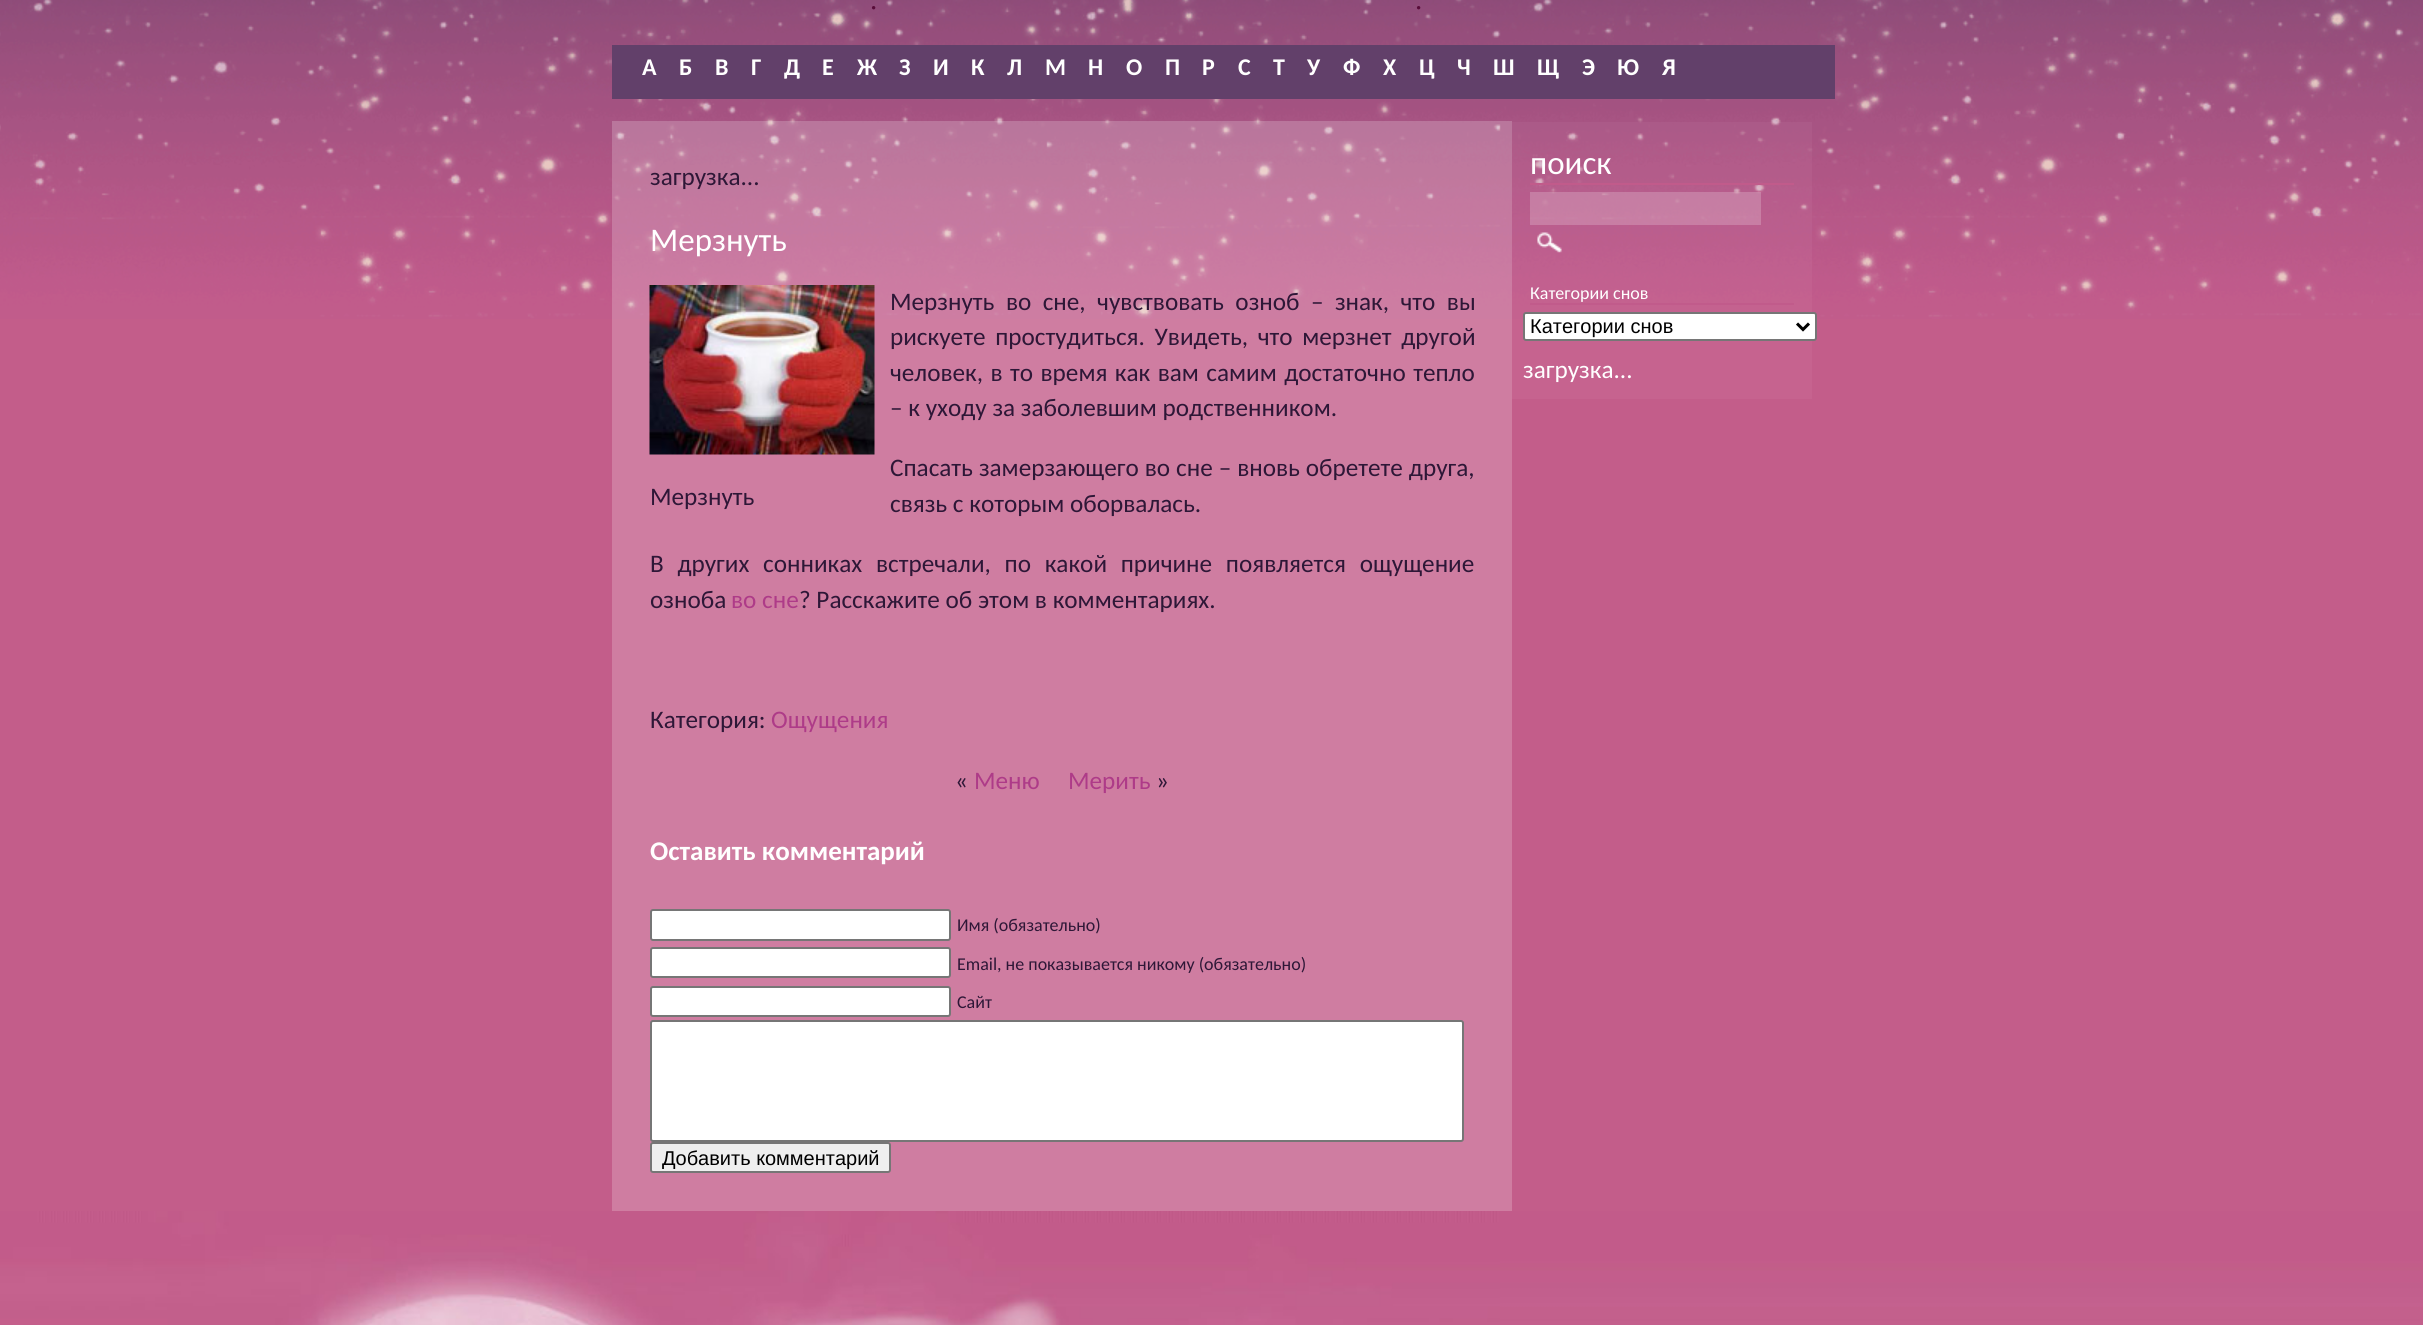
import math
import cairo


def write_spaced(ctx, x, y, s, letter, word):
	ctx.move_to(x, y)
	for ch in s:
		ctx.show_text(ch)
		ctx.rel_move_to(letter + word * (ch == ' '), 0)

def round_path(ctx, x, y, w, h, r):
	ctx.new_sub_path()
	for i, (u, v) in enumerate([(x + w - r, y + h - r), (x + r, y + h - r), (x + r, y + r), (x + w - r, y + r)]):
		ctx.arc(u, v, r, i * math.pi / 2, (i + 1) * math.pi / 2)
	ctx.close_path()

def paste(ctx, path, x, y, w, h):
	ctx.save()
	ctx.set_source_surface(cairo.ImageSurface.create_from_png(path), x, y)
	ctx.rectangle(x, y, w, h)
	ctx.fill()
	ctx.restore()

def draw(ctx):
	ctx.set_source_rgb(0.765, 0.365, 0.541)
	ctx.paint()
	paste(ctx, 'media/1.png', 0, 0, 2423, 319)
	ctx.select_font_face('Liberation Serif')
	ctx.set_font_size(29)
	ctx.set_source_rgb(0.345, 0.047, 0.224)
	ctx.move_to(870, 9)
	ctx.show_text('.')
	ctx.move_to(1415, 9)
	ctx.show_text('.')
	ctx.set_source_rgb(0.384, 0.251, 0.416)
	ctx.rectangle(612, 45, 1223, 54)
	ctx.fill()
	ctx.select_font_face('Carlito', cairo.FONT_SLANT_NORMAL, cairo.FONT_WEIGHT_BOLD)
	ctx.set_font_size(24)
	ctx.set_source_rgb(1, 1, 1)
	for x, y, s in [
		(642, 75, 'А'),
		(679, 75, 'Б'),
		(715, 75, 'В'),
		(751, 75, 'Г'),
		(784, 75, 'Д'),
		(822, 75, 'Е'),
		(857, 75, 'Ж'),
		(899, 75, 'З'),
		(933, 75, 'И'),
		(971, 75, 'К'),
		(1007, 75, 'Л'),
		(1045, 75, 'М'),
		(1088, 75, 'Н'),
		(1126, 75, 'О'),
		(1165, 75, 'П'),
		(1202, 75, 'Р'),
		(1238, 75, 'С'),
		(1273, 75, 'Т'),
		(1307, 75, 'У'),
		(1343, 75, 'Ф'),
		(1383, 75, 'Х'),
		(1419, 75, 'Ц'),
		(1457, 75, 'Ч'),
		(1493, 75, 'Ш'),
		(1537, 75, 'Щ'),
		(1582, 75, 'Э'),
		(1617, 75, 'Ю'),
		(1662, 75, 'Я'),
	]:
		ctx.move_to(x, y)
		ctx.show_text(s)
	ctx.set_source_rgba(1, 1, 1, 0.2)
	ctx.rectangle(612, 121, 900, 1090)
	ctx.fill()
	ctx.select_font_face('Carlito')
	ctx.set_font_size(25.2)
	ctx.set_source_rgb(0.18, 0.09, 0.216)
	ctx.move_to(650, 185)
	ctx.show_text('загрузка...')
	ctx.set_font_size(33)
	ctx.set_source_rgb(1, 1, 1)
	ctx.move_to(650, 251)
	ctx.show_text('Мерзнуть')
	ctx.set_font_size(25.2)
	ctx.set_source_rgb(0.18, 0.09, 0.216)
	write_spaced(ctx, 890, 310, 'Мерзнуть во сне, чувствовать озноб – знак, что вы', 0, 5.75)
	write_spaced(ctx, 890, 345, 'рискуете простудиться. Увидеть, что мерзнет другой', 0, 4)
	write_spaced(ctx, 890, 381, 'человек, в то время как вам самим достаточно тепло', 0, 1.75)
	ctx.move_to(890, 416)
	ctx.show_text('– к уходу за заболевшим родственником.')
	paste(ctx, 'media/2.png', 649, 285, 226, 170)
	ctx.move_to(650, 505)
	ctx.show_text('Мерзнуть')
	write_spaced(ctx, 890, 476, 'Спасать замерзающего во сне – вновь обретете друга,', 0, 0.25)
	ctx.move_to(890, 512)
	ctx.show_text('связь с которым оборвалась.')
	write_spaced(ctx, 650, 572, 'В других сонниках встречали, по какой причине появляется ощущение', 0, 8)
	ctx.move_to(650, 608)
	ctx.show_text('озноба')
	ctx.set_source_rgb(0.682, 0.231, 0.533)
	ctx.move_to(731, 608)
	ctx.show_text('во сне')
	ctx.set_source_rgb(0.18, 0.09, 0.216)
	ctx.move_to(799, 608)
	ctx.show_text('? Расскажите об этом в комментариях.')
	ctx.move_to(650, 728)
	ctx.show_text('Категория:')
	ctx.set_source_rgb(0.682, 0.231, 0.533)
	ctx.move_to(771, 728)
	ctx.show_text('Ощущения')
	ctx.set_source_rgb(0.18, 0.09, 0.216)
	ctx.move_to(955, 789)
	ctx.show_text('«')
	ctx.set_source_rgb(0.682, 0.231, 0.533)
	ctx.move_to(974, 789)
	ctx.show_text('Меню')
	ctx.move_to(1068, 789)
	ctx.show_text('Мерить')
	ctx.set_source_rgb(0.18, 0.09, 0.216)
	ctx.move_to(1156, 789)
	ctx.show_text('»')
	ctx.select_font_face('Carlito', cairo.FONT_SLANT_NORMAL, cairo.FONT_WEIGHT_BOLD)
	ctx.set_font_size(27)
	ctx.set_source_rgb(1, 1, 1)
	ctx.move_to(650, 860)
	ctx.show_text('Оставить комментарий')
	round_path(ctx, 651, 910, 299, 30, 2)
	ctx.fill_preserve()
	ctx.set_source_rgb(0.463, 0.463, 0.463)
	ctx.stroke()
	ctx.select_font_face('Carlito')
	ctx.set_font_size(18)
	ctx.set_source_rgb(0.18, 0.09, 0.216)
	ctx.move_to(957, 931)
	ctx.show_text('Имя (обязательно)')
	ctx.set_source_rgb(1, 1, 1)
	round_path(ctx, 651, 948, 299, 29, 2)
	ctx.fill_preserve()
	ctx.set_source_rgb(0.463, 0.463, 0.463)
	ctx.stroke()
	ctx.set_source_rgb(0.18, 0.09, 0.216)
	ctx.move_to(957, 970)
	ctx.show_text('Email, не показывается никому (обязательно)')
	ctx.set_source_rgb(1, 1, 1)
	round_path(ctx, 651, 987, 299, 29, 2)
	ctx.fill_preserve()
	ctx.set_source_rgb(0.463, 0.463, 0.463)
	ctx.stroke()
	ctx.set_source_rgb(0.18, 0.09, 0.216)
	ctx.move_to(957, 1008)
	ctx.show_text('Сайт')
	ctx.set_source_rgb(1, 1, 1)
	round_path(ctx, 651, 1021, 812, 120, 2)
	ctx.fill_preserve()
	ctx.set_source_rgb(0.463, 0.463, 0.463)
	ctx.stroke()
	ctx.set_source_rgb(0.937, 0.937, 0.937)
	round_path(ctx, 651, 1143, 239, 29, 2)
	ctx.fill_preserve()
	ctx.set_source_rgb(0.463, 0.463, 0.463)
	ctx.stroke()
	ctx.select_font_face('Liberation Sans')
	ctx.set_font_size(20)
	ctx.set_source_rgb(0, 0, 0)
	ctx.move_to(662, 1165)
	ctx.show_text('Добавить комментарий')
	ctx.set_source_rgba(1, 0.847, 0.922, 0.05)
	ctx.rectangle(1512, 122, 300, 277)
	ctx.fill()
	ctx.set_source_rgb(0.757, 0.357, 0.545)
	ctx.rectangle(1530, 183, 264, 2)
	ctx.fill()
	ctx.select_font_face('Carlito')
	ctx.set_font_size(33)
	ctx.set_source_rgb(1, 1, 1)
	ctx.move_to(1530, 174)
	ctx.show_text('поиск')
	ctx.set_source_rgba(1, 1, 1, 0.2)
	ctx.rectangle(1530, 192, 231, 33)
	ctx.fill()
	paste(ctx, 'media/3.png', 1537, 232, 25, 21)
	ctx.set_source_rgb(0.757, 0.357, 0.545)
	ctx.rectangle(1530, 303, 264, 2)
	ctx.fill()
	ctx.set_font_size(18)
	ctx.set_source_rgb(1, 1, 1)
	ctx.move_to(1530, 299)
	ctx.show_text('Категории снов')
	round_path(ctx, 1524, 313, 292, 27, 2)
	ctx.fill_preserve()
	ctx.set_source_rgb(0.463, 0.463, 0.463)
	ctx.stroke()
	ctx.new_path()
	ctx.move_to(1797, 323.5)
	ctx.line_to(1803, 329.5)
	ctx.line_to(1809, 323.5)
	ctx.set_source_rgb(0, 0, 0)
	ctx.set_line_width(3)
	ctx.stroke()
	ctx.select_font_face('Liberation Sans')
	ctx.set_font_size(20)
	ctx.move_to(1530, 333)
	ctx.show_text('Категории снов')
	ctx.select_font_face('Carlito')
	ctx.set_font_size(25.2)
	ctx.set_source_rgb(1, 1, 1)
	ctx.move_to(1523, 378)
	ctx.show_text('загрузка...')
	paste(ctx, 'media/4.png', 1500, 1211, 923, 114)
	paste(ctx, 'media/5.png', 0, 1211, 1500, 114)


surface = cairo.ImageSurface(cairo.FORMAT_RGB24, 2423, 1325)
ctx = cairo.Context(surface)
options = cairo.FontOptions()
options.set_hint_metrics(cairo.HINT_METRICS_OFF)
options.set_hint_style(cairo.HINT_STYLE_NONE)
ctx.set_font_options(options)
ctx.set_miter_limit(4)
draw(ctx)
surface.write_to_png('image.png')
